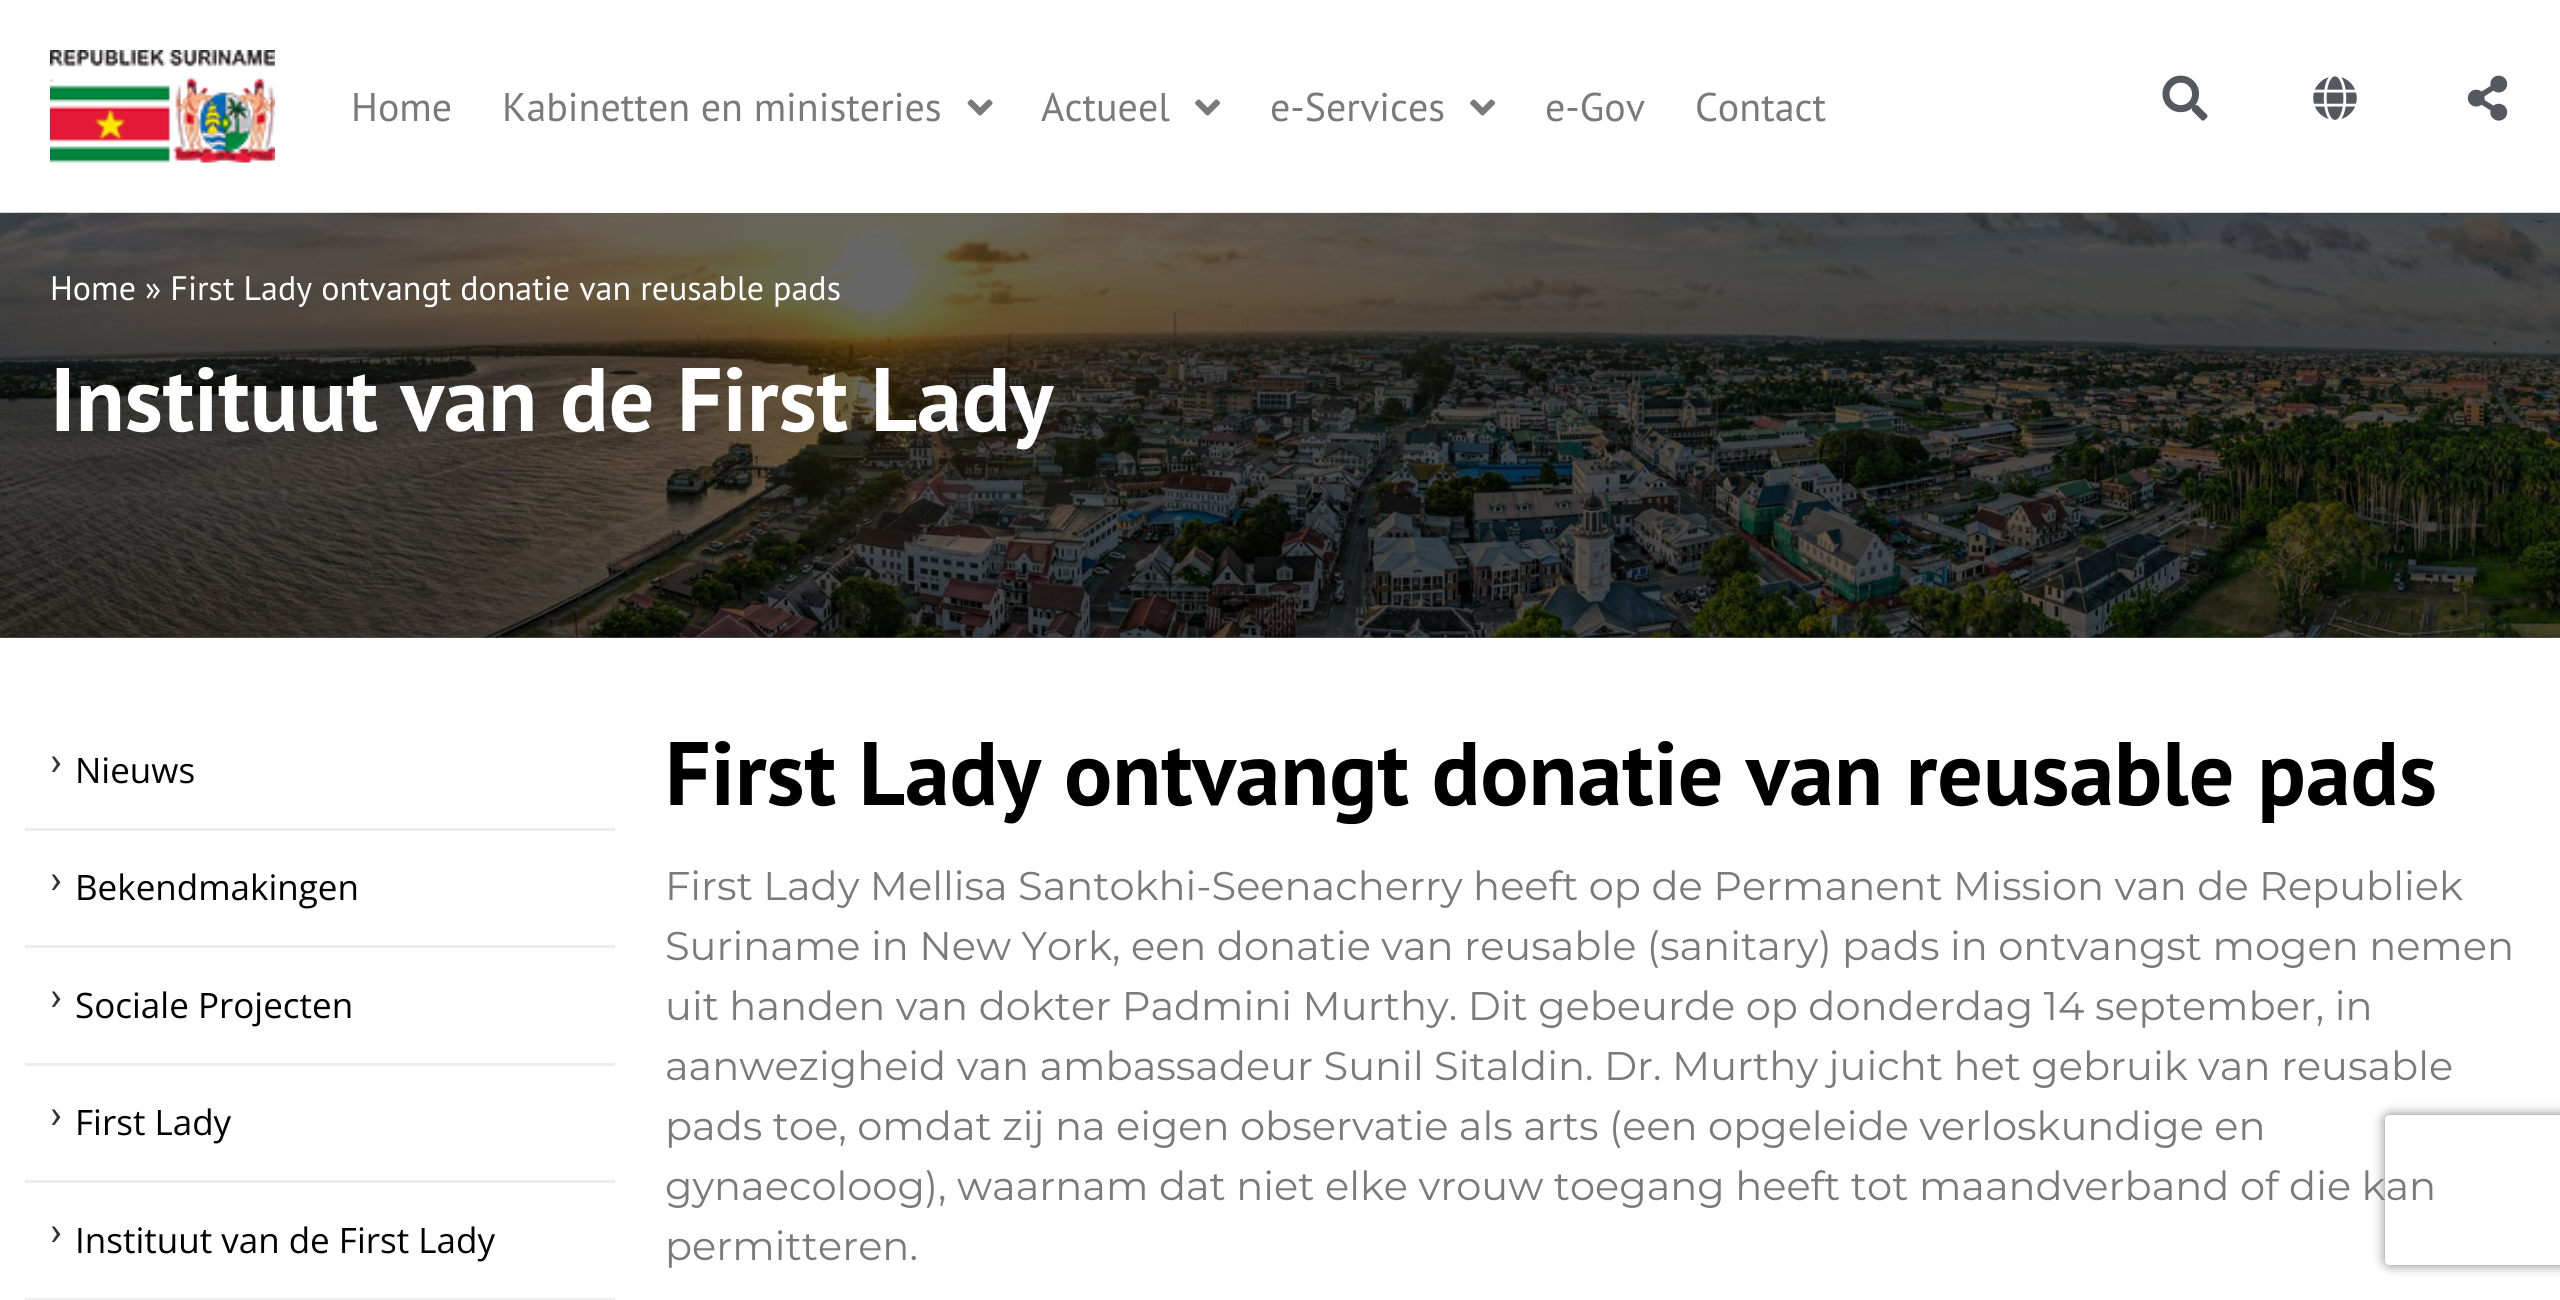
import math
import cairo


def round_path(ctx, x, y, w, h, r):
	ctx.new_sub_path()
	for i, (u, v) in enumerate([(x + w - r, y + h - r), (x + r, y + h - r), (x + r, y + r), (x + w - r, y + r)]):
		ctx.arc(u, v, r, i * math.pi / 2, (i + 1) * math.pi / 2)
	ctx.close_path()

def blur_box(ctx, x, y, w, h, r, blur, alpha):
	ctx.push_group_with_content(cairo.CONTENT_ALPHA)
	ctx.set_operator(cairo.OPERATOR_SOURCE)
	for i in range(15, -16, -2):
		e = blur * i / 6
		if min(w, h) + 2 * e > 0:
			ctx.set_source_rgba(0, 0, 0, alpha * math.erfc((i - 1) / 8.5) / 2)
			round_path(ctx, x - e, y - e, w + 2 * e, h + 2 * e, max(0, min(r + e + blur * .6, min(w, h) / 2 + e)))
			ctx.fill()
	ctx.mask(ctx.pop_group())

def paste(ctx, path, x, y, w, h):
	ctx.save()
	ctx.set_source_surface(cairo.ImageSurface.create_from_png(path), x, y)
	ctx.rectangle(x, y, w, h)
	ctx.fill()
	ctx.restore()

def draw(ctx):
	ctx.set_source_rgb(1, 1, 1)
	ctx.paint()
	ctx.set_source_rgb(0.4, 0.4, 0.4)
	ctx.rectangle(0, 637, 2560, 1)
	ctx.fill()
	paste(ctx, 'media/1.png', 50, 50, 225, 113)
	ctx.select_font_face('PT Sans')
	ctx.set_font_size(40)
	ctx.set_source_rgb(0.478, 0.478, 0.478)
	ctx.move_to(351, 121)
	ctx.show_text('Home')
	ctx.move_to(502, 121)
	ctx.show_text('Kabinetten en ministeries')
	paste(ctx, 'media/2.png', 967, 99, 26, 17)
	ctx.move_to(1041, 121)
	ctx.show_text('Actueel')
	paste(ctx, 'media/3.png', 1195, 99, 25, 17)
	ctx.move_to(1270, 121)
	ctx.show_text('e-Services')
	paste(ctx, 'media/3.png', 1470, 99, 25, 17)
	ctx.move_to(1545, 121)
	ctx.show_text('e-Gov')
	ctx.move_to(1695, 121)
	ctx.show_text('Contact')
	paste(ctx, 'media/4.png', 2162, 75, 46, 46)
	paste(ctx, 'media/5.png', 2313, 76, 44, 44)
	paste(ctx, 'media/6.png', 2467, 75, 41, 46)
	paste(ctx, 'media/7.png', 0, 212, 2560, 426)
	ctx.set_font_size(34)
	ctx.set_source_rgb(1, 1, 1)
	ctx.move_to(50, 300)
	ctx.show_text('Home » First Lady ontvangt donatie van reusable pads')
	ctx.select_font_face('PT Sans', cairo.FONT_SLANT_NORMAL, cairo.FONT_WEIGHT_BOLD)
	ctx.set_font_size(90)
	ctx.move_to(50, 431)
	ctx.show_text('Instituut van de First Lady')
	ctx.select_font_face('Roboto')
	ctx.set_font_size(40)
	ctx.set_source_rgb(0.2, 0.2, 0.2)
	ctx.move_to(50, 775)
	ctx.show_text('›')
	ctx.set_source_rgb(0.929, 0.929, 0.929)
	ctx.rectangle(25, 828, 590, 3)
	ctx.fill()
	ctx.select_font_face('Open Sans')
	ctx.set_font_size(35)
	ctx.set_source_rgb(0, 0, 0)
	ctx.move_to(75, 783)
	ctx.show_text('Nieuws')
	ctx.select_font_face('Roboto')
	ctx.set_font_size(40)
	ctx.set_source_rgb(0.2, 0.2, 0.2)
	ctx.move_to(50, 893)
	ctx.show_text('›')
	ctx.set_source_rgb(0.929, 0.929, 0.929)
	ctx.rectangle(25, 945, 590, 3)
	ctx.fill()
	ctx.select_font_face('Open Sans')
	ctx.set_font_size(35)
	ctx.set_source_rgb(0, 0, 0)
	ctx.move_to(75, 900)
	ctx.show_text('Bekendmakingen')
	ctx.select_font_face('Roboto')
	ctx.set_font_size(40)
	ctx.set_source_rgb(0.2, 0.2, 0.2)
	ctx.move_to(50, 1010)
	ctx.show_text('›')
	ctx.set_source_rgb(0.929, 0.929, 0.929)
	ctx.rectangle(25, 1063, 590, 3)
	ctx.fill()
	ctx.select_font_face('Open Sans')
	ctx.set_font_size(35)
	ctx.set_source_rgb(0, 0, 0)
	ctx.move_to(75, 1018)
	ctx.show_text('Sociale Projecten')
	ctx.select_font_face('Roboto')
	ctx.set_font_size(40)
	ctx.set_source_rgb(0.2, 0.2, 0.2)
	ctx.move_to(50, 1128)
	ctx.show_text('›')
	ctx.set_source_rgb(0.929, 0.929, 0.929)
	ctx.rectangle(25, 1180, 590, 3)
	ctx.fill()
	ctx.select_font_face('Open Sans')
	ctx.set_font_size(35)
	ctx.set_source_rgb(0, 0, 0)
	ctx.move_to(75, 1135)
	ctx.show_text('First Lady')
	ctx.select_font_face('Roboto')
	ctx.set_font_size(40)
	ctx.set_source_rgb(0.2, 0.2, 0.2)
	ctx.move_to(50, 1245)
	ctx.show_text('›')
	ctx.set_source_rgb(0.929, 0.929, 0.929)
	ctx.rectangle(25, 1298, 590, 2)
	ctx.fill()
	ctx.select_font_face('Open Sans')
	ctx.set_font_size(35)
	ctx.set_source_rgb(0, 0, 0)
	ctx.move_to(75, 1253)
	ctx.show_text('Instituut van de First Lady')
	ctx.select_font_face('PT Sans', cairo.FONT_SLANT_NORMAL, cairo.FONT_WEIGHT_BOLD)
	ctx.set_font_size(90)
	ctx.move_to(665, 805)
	ctx.show_text('First Lady ontvangt donatie van reusable pads')
	ctx.select_font_face('Montserrat')
	ctx.set_font_size(40)
	ctx.set_source_rgb(0.478, 0.478, 0.478)
	for x, y, s in [
		(665, 900, 'First Lady Mellisa Santokhi-Seenacherry heeft op de Permanent Mission van de Republiek'),
		(665, 960, 'Suriname in New York, een donatie van reusable (sanitary) pads in ontvangst mogen nemen'),
		(665, 1020, 'uit handen van dokter Padmini Murthy. Dit gebeurde op donderdag 14 september, in'),
		(665, 1080, 'aanwezigheid van ambassadeur Sunil Sitaldin. Dr. Murthy juicht het gebruik van reusable'),
		(665, 1140, 'pads toe, omdat zij na eigen observatie als arts (een opgeleide verloskundige en'),
		(665, 1200, 'gynaecoloog), waarnam dat niet elke vrouw toegang heeft tot maandverband of die kan'),
		(665, 1260, 'permitteren.'),
	]:
		ctx.move_to(x, y)
		ctx.show_text(s)
	ctx.save()
	ctx.set_fill_rule(cairo.FILL_RULE_EVEN_ODD)
	ctx.new_path()
	ctx.move_to(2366, 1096)
	ctx.line_to(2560, 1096)
	ctx.line_to(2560, 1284)
	ctx.line_to(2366, 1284)
	ctx.close_path()
	ctx.move_to(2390, 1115)
	ctx.line_to(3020, 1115)
	ctx.curve_to(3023, 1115, 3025, 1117, 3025, 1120)
	ctx.line_to(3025, 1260)
	ctx.curve_to(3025, 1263, 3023, 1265, 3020, 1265)
	ctx.line_to(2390, 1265)
	ctx.curve_to(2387, 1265, 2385, 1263, 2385, 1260)
	ctx.line_to(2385, 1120)
	ctx.curve_to(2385, 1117, 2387, 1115, 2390, 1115)
	ctx.close_path()
	ctx.clip()
	ctx.set_source_rgb(0.502, 0.502, 0.502)
	blur_box(ctx, 2385, 1115, 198, 150, 5, 6, 1)
	ctx.restore()


surface = cairo.ImageSurface(cairo.FORMAT_RGB24, 2560, 1300)
ctx = cairo.Context(surface)
options = cairo.FontOptions()
options.set_hint_metrics(cairo.HINT_METRICS_OFF)
options.set_hint_style(cairo.HINT_STYLE_NONE)
ctx.set_font_options(options)
ctx.set_miter_limit(4)
draw(ctx)
surface.write_to_png('image.png')
